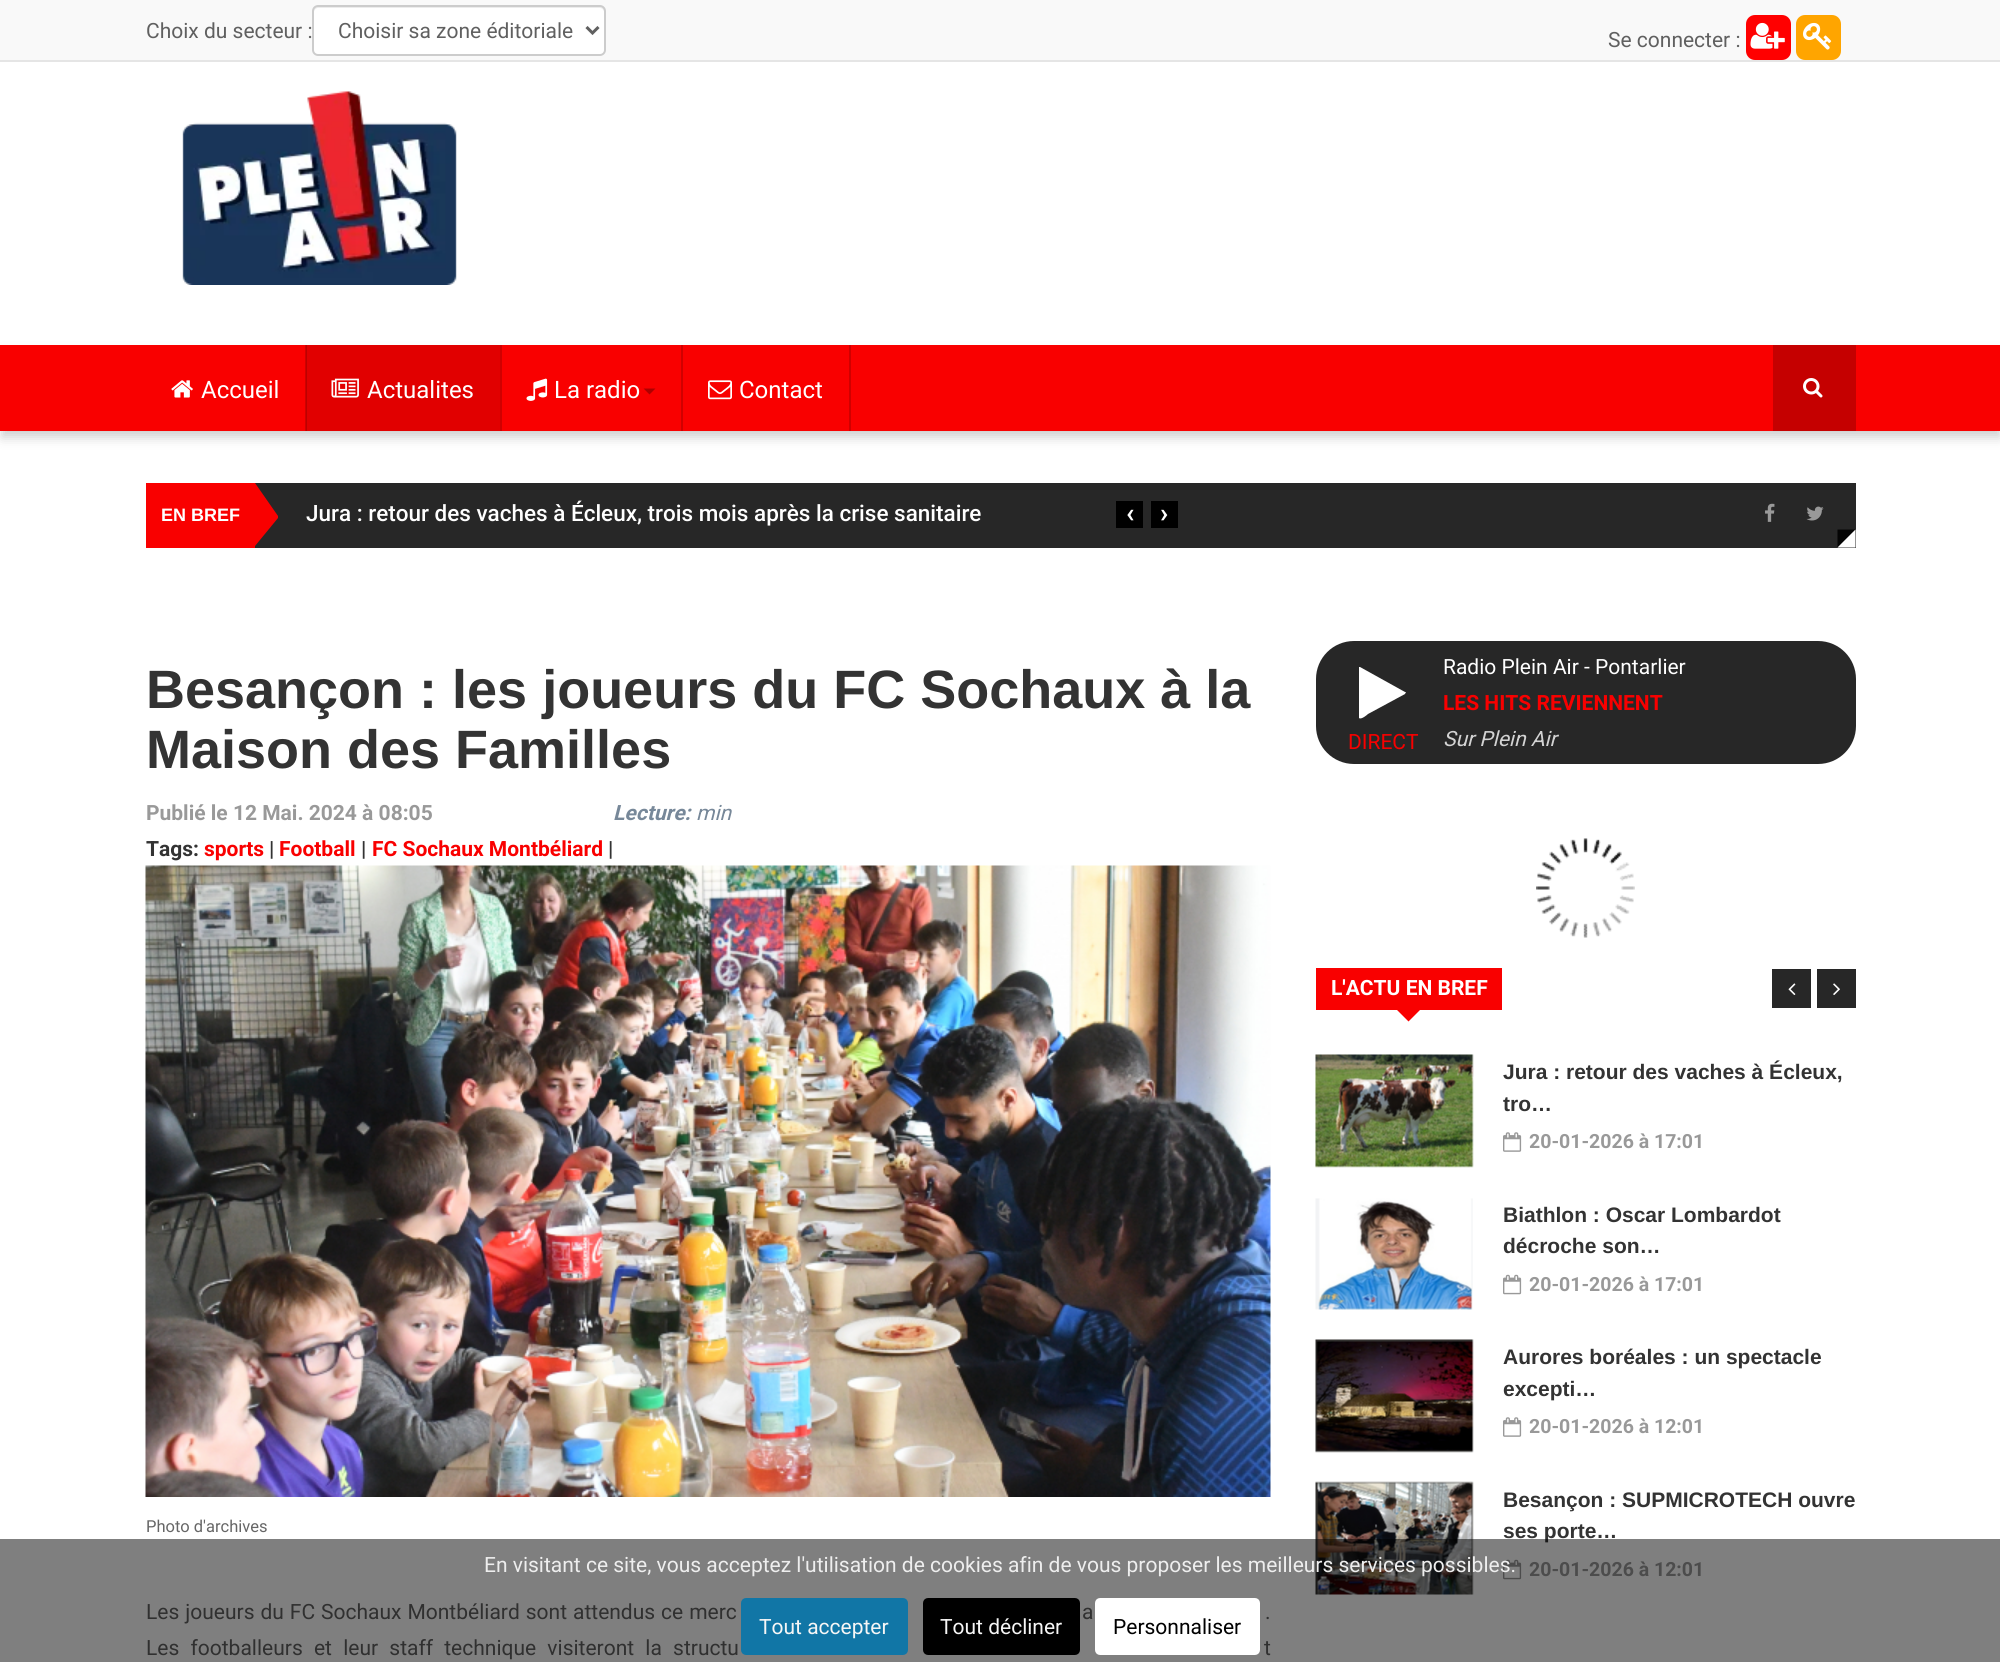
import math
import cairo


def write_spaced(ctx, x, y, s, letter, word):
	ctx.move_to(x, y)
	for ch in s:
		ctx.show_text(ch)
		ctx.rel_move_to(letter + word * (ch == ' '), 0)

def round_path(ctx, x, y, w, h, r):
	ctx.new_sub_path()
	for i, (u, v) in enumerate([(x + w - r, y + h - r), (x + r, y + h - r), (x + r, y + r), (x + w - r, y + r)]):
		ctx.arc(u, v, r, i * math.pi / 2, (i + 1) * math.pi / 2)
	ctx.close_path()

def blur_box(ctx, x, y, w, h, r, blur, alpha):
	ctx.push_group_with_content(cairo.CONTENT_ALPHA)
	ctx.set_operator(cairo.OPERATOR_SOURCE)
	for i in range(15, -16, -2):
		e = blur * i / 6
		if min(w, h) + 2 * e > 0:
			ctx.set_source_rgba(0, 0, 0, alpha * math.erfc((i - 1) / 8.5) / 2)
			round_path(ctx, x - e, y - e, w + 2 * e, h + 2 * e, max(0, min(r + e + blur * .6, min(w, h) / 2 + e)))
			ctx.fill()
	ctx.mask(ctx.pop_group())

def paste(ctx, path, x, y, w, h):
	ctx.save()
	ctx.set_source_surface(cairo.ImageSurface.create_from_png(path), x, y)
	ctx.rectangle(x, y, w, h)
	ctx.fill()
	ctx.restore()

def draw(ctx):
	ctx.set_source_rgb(1, 1, 1)
	ctx.paint()
	ctx.set_source_rgb(0.973, 0.973, 0.973)
	ctx.rectangle(0, 0, 2000, 60)
	ctx.fill()
	ctx.set_source_rgb(0.898, 0.898, 0.898)
	ctx.rectangle(0, 60, 2000, 2)
	ctx.fill()
	ctx.select_font_face('Roboto')
	ctx.set_font_size(21)
	ctx.set_source_rgb(0.376, 0.376, 0.376)
	ctx.move_to(146, 38)
	ctx.show_text('Choix du secteur :')
	ctx.set_source_rgb(1, 1, 1)
	round_path(ctx, 312, 5, 294, 51, 6)
	ctx.fill()
	ctx.set_source_rgb(0.925, 0.925, 0.925)
	ctx.new_path()
	ctx.move_to(318, 8)
	ctx.line_to(600, 8)
	ctx.curve_to(602, 8, 604, 10, 604, 12)
	ctx.line_to(604, 52)
	ctx.curve_to(605, 51, 605, 50, 605, 49)
	ctx.line_to(605, 11)
	ctx.curve_to(605, 8, 603, 6, 600, 6)
	ctx.line_to(319, 6)
	ctx.curve_to(316, 6, 314, 8, 314, 11)
	ctx.line_to(314, 12)
	ctx.curve_to(314, 10, 316, 8, 318, 8)
	ctx.close_path()
	ctx.fill()
	round_path(ctx, 313, 6, 292, 49, 5)
	ctx.set_source_rgb(0.8, 0.8, 0.8)
	ctx.stroke()
	ctx.new_path()
	ctx.move_to(586.5, 27)
	ctx.line_to(592.5, 33)
	ctx.line_to(598.5, 27)
	ctx.set_source_rgb(0.376, 0.376, 0.376)
	ctx.set_line_width(3)
	ctx.stroke()
	ctx.move_to(338, 38)
	ctx.show_text('Choisir sa zone éditoriale')
	ctx.move_to(1608, 47)
	ctx.show_text('Se connecter :')
	ctx.set_source_rgb(1, 0, 0)
	round_path(ctx, 1746, 15, 45, 45, 9)
	ctx.fill()
	paste(ctx, 'media/1.png', 1750, 22, 35, 27)
	ctx.set_source_rgb(1, 0.647, 0)
	round_path(ctx, 1796, 15, 45, 45, 9)
	ctx.fill()
	paste(ctx, 'media/2.png', 1803, 22, 29, 28)
	paste(ctx, 'media/3.png', 182, 91, 275, 194)
	ctx.set_source_rgb(0, 0, 0)
	blur_box(ctx, 2, 354, 1998, 83, 0, 6, 0.2)
	ctx.set_source_rgb(0.973, 0, 0)
	ctx.rectangle(0, 345, 2000, 86)
	ctx.fill()
	ctx.set_source_rgb(0.816, 0, 0)
	ctx.rectangle(305, 345, 2, 86)
	ctx.fill()
	paste(ctx, 'media/4.png', 171, 380, 22, 18)
	ctx.set_font_size(24)
	ctx.set_source_rgb(1, 1, 1)
	ctx.move_to(201, 398)
	ctx.show_text('Accueil')
	ctx.set_source_rgb(0.816, 0, 0)
	ctx.rectangle(500, 345, 2, 86)
	ctx.fill()
	ctx.set_source_rgba(0, 0, 0, 0.1)
	ctx.rectangle(306, 345, 194, 86)
	ctx.fill()
	paste(ctx, 'media/5.png', 331, 378, 28, 20)
	ctx.set_source_rgb(1, 1, 1)
	ctx.move_to(367, 398)
	ctx.show_text('Actualites')
	ctx.set_source_rgb(0.816, 0, 0)
	ctx.rectangle(681, 345, 2, 86)
	ctx.fill()
	paste(ctx, 'media/6.png', 526, 378, 22, 23)
	ctx.set_source_rgb(1, 1, 1)
	ctx.move_to(554, 398)
	ctx.show_text('La radio')
	ctx.set_source_rgb(0.682, 0, 0)
	ctx.new_path()
	ctx.move_to(643.5, 388.5)
	ctx.line_to(655.5, 388.5)
	ctx.line_to(649.5, 394.5)
	ctx.close_path()
	ctx.fill()
	ctx.set_source_rgb(0.816, 0, 0)
	ctx.rectangle(849, 345, 2, 86)
	ctx.fill()
	paste(ctx, 'media/7.png', 708, 380, 24, 20)
	ctx.set_source_rgb(1, 1, 1)
	ctx.move_to(739, 398)
	ctx.show_text('Contact')
	ctx.set_source_rgb(0.773, 0, 0)
	ctx.rectangle(1773, 345, 83, 86)
	ctx.fill()
	paste(ctx, 'media/8.png', 1803, 378, 20, 20)
	ctx.set_source_rgb(0.153, 0.153, 0.153)
	ctx.rectangle(255, 483, 1601, 65)
	ctx.fill()
	ctx.set_source_rgb(0.973, 0, 0)
	ctx.rectangle(146, 483, 109, 65)
	ctx.fill()
	ctx.select_font_face('Liberation Sans', cairo.FONT_SLANT_NORMAL, cairo.FONT_WEIGHT_BOLD)
	ctx.set_font_size(18)
	ctx.set_source_rgb(1, 1, 1)
	ctx.move_to(161, 521)
	ctx.show_text('EN BREF')
	ctx.set_source_rgb(0.973, 0, 0)
	ctx.new_path()
	ctx.move_to(255, 546)
	ctx.line_to(255, 483)
	ctx.line_to(278, 516)
	ctx.line_to(278, 518)
	ctx.close_path()
	ctx.fill()
	ctx.select_font_face('Roboto Medium')
	ctx.set_font_size(22.5)
	ctx.set_source_rgb(1, 1, 1)
	ctx.move_to(306, 521)
	ctx.show_text('Jura : retour des vaches à Écleux, trois mois après la crise sanitaire')
	ctx.set_source_rgb(0, 0, 0)
	ctx.rectangle(1116, 501, 27, 27)
	ctx.fill()
	ctx.select_font_face('Roboto', cairo.FONT_SLANT_NORMAL, cairo.FONT_WEIGHT_BOLD)
	ctx.set_font_size(27)
	ctx.set_source_rgb(1, 1, 1)
	ctx.move_to(1126, 522)
	ctx.show_text('‹')
	ctx.set_source_rgb(0, 0, 0)
	ctx.rectangle(1151, 501, 27, 27)
	ctx.fill()
	ctx.set_source_rgb(1, 1, 1)
	ctx.move_to(1160, 522)
	ctx.show_text('›')
	paste(ctx, 'media/9.png', 1765, 503, 10, 19)
	paste(ctx, 'media/10.png', 1806, 506, 18, 15)
	ctx.set_source_rgb(0.016, 0.016, 0.016)
	ctx.new_path()
	ctx.move_to(1837.5, 529.5)
	ctx.line_to(1855.5, 529.5)
	ctx.line_to(1837.5, 547.5)
	ctx.close_path()
	ctx.fill()
	ctx.set_source_rgb(1, 1, 1)
	ctx.new_path()
	ctx.move_to(1855.5, 529.5)
	ctx.line_to(1855.5, 547.5)
	ctx.line_to(1837.5, 547.5)
	ctx.close_path()
	ctx.fill()
	ctx.select_font_face('Liberation Sans', cairo.FONT_SLANT_NORMAL, cairo.FONT_WEIGHT_BOLD)
	ctx.set_font_size(54)
	ctx.set_source_rgb(0.2, 0.2, 0.2)
	ctx.move_to(146, 708)
	ctx.show_text('Besançon : les joueurs du FC Sochaux à la')
	ctx.move_to(146, 768)
	ctx.show_text('Maison des Familles')
	ctx.select_font_face('Roboto', cairo.FONT_SLANT_NORMAL, cairo.FONT_WEIGHT_BOLD)
	ctx.set_font_size(21)
	ctx.set_source_rgb(0.6, 0.6, 0.6)
	ctx.move_to(146, 820)
	ctx.show_text('Publié le 12 Mai. 2024 à 08:05')
	ctx.set_source_rgb(0.2, 0.2, 0.2)
	ctx.move_to(146, 856)
	ctx.show_text('Tags:')
	ctx.set_source_rgb(0.973, 0, 0)
	ctx.move_to(204, 856)
	ctx.show_text('sports')
	ctx.set_source_rgb(0.2, 0.2, 0.2)
	ctx.move_to(269, 856)
	ctx.show_text('|')
	ctx.set_source_rgb(0.973, 0, 0)
	ctx.move_to(279, 856)
	ctx.show_text('Football')
	ctx.set_source_rgb(0.2, 0.2, 0.2)
	ctx.move_to(361, 856)
	ctx.show_text('|')
	ctx.set_source_rgb(0.973, 0, 0)
	ctx.move_to(372, 856)
	ctx.show_text('FC Sochaux Montbéliard')
	ctx.set_source_rgb(0.2, 0.2, 0.2)
	ctx.move_to(608, 856)
	ctx.show_text('|')
	ctx.select_font_face('Roboto', cairo.FONT_SLANT_ITALIC, cairo.FONT_WEIGHT_BOLD)
	ctx.set_source_rgb(0.467, 0.533, 0.6)
	ctx.move_to(613, 820)
	ctx.show_text('Lecture:')
	ctx.select_font_face('Roboto', cairo.FONT_SLANT_ITALIC)
	ctx.move_to(696, 820)
	ctx.show_text('min')
	paste(ctx, 'media/11.png', 145, 865, 1126, 632)
	ctx.select_font_face('Roboto')
	ctx.set_font_size(16.5)
	ctx.set_source_rgb(0.4, 0.4, 0.4)
	ctx.move_to(146, 1532)
	ctx.show_text('Photo d\'archives')
	ctx.set_font_size(21)
	ctx.set_source_rgb(0.376, 0.376, 0.376)
	for x, y, s in [
		(146, 1619, 'Les joueurs du FC Sochaux Montbéliard sont attendus ce merc'),
		(1082, 1619, 'a'),
		(1265, 1619, '.'),
	]:
		write_spaced(ctx, x, y, s, 0, 0.75)
	write_spaced(ctx, 146, 1655, 'Les footballeurs et leur staff technique visiteront la structu', 0, 6)
	write_spaced(ctx, 1264, 1655, 't', 0, 6)
	ctx.set_source_rgb(0.153, 0.153, 0.153)
	round_path(ctx, 1316, 641, 540, 123, 38)
	ctx.fill()
	ctx.set_source_rgb(1, 1, 1)
	ctx.new_path()
	ctx.move_to(1405, 694)
	ctx.line_to(1368, 714)
	ctx.curve_to(1367, 715, 1361, 720, 1359, 718)
	ctx.line_to(1359, 667)
	ctx.line_to(1360, 667)
	ctx.line_to(1405, 692)
	ctx.line_to(1406, 692)
	ctx.close_path()
	ctx.fill()
	ctx.set_source_rgb(0.973, 0, 0)
	ctx.move_to(1348, 749)
	ctx.show_text('DIRECT')
	ctx.set_source_rgb(1, 1, 1)
	ctx.move_to(1443, 674)
	ctx.show_text('Radio Plein Air - Pontarlier')
	ctx.select_font_face('Roboto', cairo.FONT_SLANT_NORMAL, cairo.FONT_WEIGHT_BOLD)
	ctx.set_source_rgb(0.973, 0, 0)
	ctx.move_to(1443, 710)
	ctx.show_text('LES HITS REVIENNENT')
	ctx.select_font_face('Roboto', cairo.FONT_SLANT_ITALIC)
	ctx.set_source_rgb(0.827, 0.827, 0.827)
	ctx.move_to(1443, 746)
	ctx.show_text('Sur Plein Air')
	paste(ctx, 'media/12.png', 1536, 838, 99, 100)
	ctx.set_source_rgb(0.973, 0, 0)
	ctx.rectangle(1316, 968, 186, 42)
	ctx.fill()
	ctx.select_font_face('Roboto', cairo.FONT_SLANT_NORMAL, cairo.FONT_WEIGHT_BOLD)
	ctx.set_source_rgb(1, 1, 1)
	ctx.move_to(1331, 995)
	ctx.show_text('L\'ACTU EN BREF')
	ctx.set_source_rgb(0.973, 0, 0)
	ctx.new_path()
	ctx.move_to(1393.5, 1006.5)
	ctx.line_to(1423.5, 1006.5)
	ctx.line_to(1408.5, 1021.5)
	ctx.close_path()
	ctx.fill()
	ctx.set_source_rgb(0.153, 0.153, 0.153)
	ctx.rectangle(1772, 969, 39, 39)
	ctx.fill()
	paste(ctx, 'media/13.png', 1788, 983, 8, 12)
	ctx.rectangle(1817, 969, 39, 39)
	ctx.fill()
	paste(ctx, 'media/14.png', 1833, 983, 7, 12)
	paste(ctx, 'media/15.png', 1315, 1054, 159, 114)
	ctx.select_font_face('Liberation Sans', cairo.FONT_SLANT_NORMAL, cairo.FONT_WEIGHT_BOLD)
	ctx.set_source_rgb(0.2, 0.2, 0.2)
	ctx.move_to(1503, 1079)
	ctx.show_text('Jura : retour des vaches à Écleux,')
	ctx.move_to(1503, 1111)
	ctx.show_text('tro…')
	paste(ctx, 'media/16.png', 1503, 1132, 19, 20)
	ctx.select_font_face('Roboto', cairo.FONT_SLANT_NORMAL, cairo.FONT_WEIGHT_BOLD)
	ctx.set_font_size(19.5)
	ctx.set_source_rgb(0.6, 0.6, 0.6)
	ctx.move_to(1529, 1148)
	ctx.show_text('20-01-2026 à 17:01')
	paste(ctx, 'media/17.png', 1315, 1198, 158, 112)
	ctx.select_font_face('Liberation Sans', cairo.FONT_SLANT_NORMAL, cairo.FONT_WEIGHT_BOLD)
	ctx.set_font_size(21)
	ctx.set_source_rgb(0.2, 0.2, 0.2)
	ctx.move_to(1503, 1222)
	ctx.show_text('Biathlon : Oscar Lombardot')
	ctx.move_to(1503, 1253)
	ctx.show_text('décroche son…')
	paste(ctx, 'media/18.png', 1503, 1274, 19, 21)
	ctx.select_font_face('Roboto', cairo.FONT_SLANT_NORMAL, cairo.FONT_WEIGHT_BOLD)
	ctx.set_font_size(19.5)
	ctx.set_source_rgb(0.6, 0.6, 0.6)
	ctx.move_to(1529, 1291)
	ctx.show_text('20-01-2026 à 17:01')
	paste(ctx, 'media/19.png', 1315, 1339, 159, 114)
	ctx.select_font_face('Liberation Sans', cairo.FONT_SLANT_NORMAL, cairo.FONT_WEIGHT_BOLD)
	ctx.set_font_size(21)
	ctx.set_source_rgb(0.2, 0.2, 0.2)
	ctx.move_to(1503, 1364)
	ctx.show_text('Aurores boréales : un spectacle')
	ctx.move_to(1503, 1396)
	ctx.show_text('excepti…')
	paste(ctx, 'media/16.png', 1503, 1417, 19, 20)
	ctx.select_font_face('Roboto', cairo.FONT_SLANT_NORMAL, cairo.FONT_WEIGHT_BOLD)
	ctx.set_font_size(19.5)
	ctx.set_source_rgb(0.6, 0.6, 0.6)
	ctx.move_to(1529, 1433)
	ctx.show_text('20-01-2026 à 12:01')
	paste(ctx, 'media/20.png', 1315, 1481, 159, 114)
	ctx.select_font_face('Liberation Sans', cairo.FONT_SLANT_NORMAL, cairo.FONT_WEIGHT_BOLD)
	ctx.set_font_size(21)
	ctx.set_source_rgb(0.2, 0.2, 0.2)
	ctx.move_to(1503, 1507)
	ctx.show_text('Besançon : SUPMICROTECH ouvre')
	ctx.move_to(1503, 1538)
	ctx.show_text('ses porte…')
	paste(ctx, 'media/18.png', 1503, 1559, 19, 21)
	ctx.select_font_face('Roboto', cairo.FONT_SLANT_NORMAL, cairo.FONT_WEIGHT_BOLD)
	ctx.set_font_size(19.5)
	ctx.set_source_rgb(0.6, 0.6, 0.6)
	ctx.move_to(1529, 1576)
	ctx.show_text('20-01-2026 à 12:01')
	ctx.set_source_rgba(0, 0, 0, 0.5)
	ctx.rectangle(0, 1539, 2000, 123)
	ctx.fill()
	ctx.select_font_face('Roboto')
	ctx.set_font_size(21)
	ctx.set_source_rgb(0.933, 0.933, 0.933)
	ctx.move_to(484, 1572)
	ctx.show_text('En visitant ce site, vous acceptez l\'utilisation de cookies afin de vous proposer les meilleurs services possibles.')
	ctx.set_source_rgb(0.067, 0.463, 0.651)
	round_path(ctx, 742.5, 1599.5, 164, 54, 3.5)
	ctx.fill_preserve()
	ctx.stroke()
	ctx.set_source_rgb(0.961, 0.961, 0.961)
	ctx.move_to(759, 1634)
	ctx.show_text('Tout accepter')
	ctx.set_source_rgb(0, 0, 0)
	round_path(ctx, 924.5, 1599.5, 154, 54, 3.5)
	ctx.fill_preserve()
	ctx.stroke()
	ctx.set_source_rgb(0.961, 0.961, 0.961)
	ctx.move_to(940, 1634)
	ctx.show_text('Tout décliner')
	ctx.set_source_rgb(1, 1, 1)
	round_path(ctx, 1096.5, 1599.5, 162, 54, 3.5)
	ctx.fill_preserve()
	ctx.stroke()
	ctx.set_source_rgb(0, 0, 0)
	ctx.move_to(1113, 1634)
	ctx.show_text('Personnaliser')


surface = cairo.ImageSurface(cairo.FORMAT_RGB24, 2000, 1662)
ctx = cairo.Context(surface)
options = cairo.FontOptions()
options.set_hint_metrics(cairo.HINT_METRICS_OFF)
options.set_hint_style(cairo.HINT_STYLE_NONE)
ctx.set_font_options(options)
ctx.set_miter_limit(4)
draw(ctx)
surface.write_to_png('image.png')
